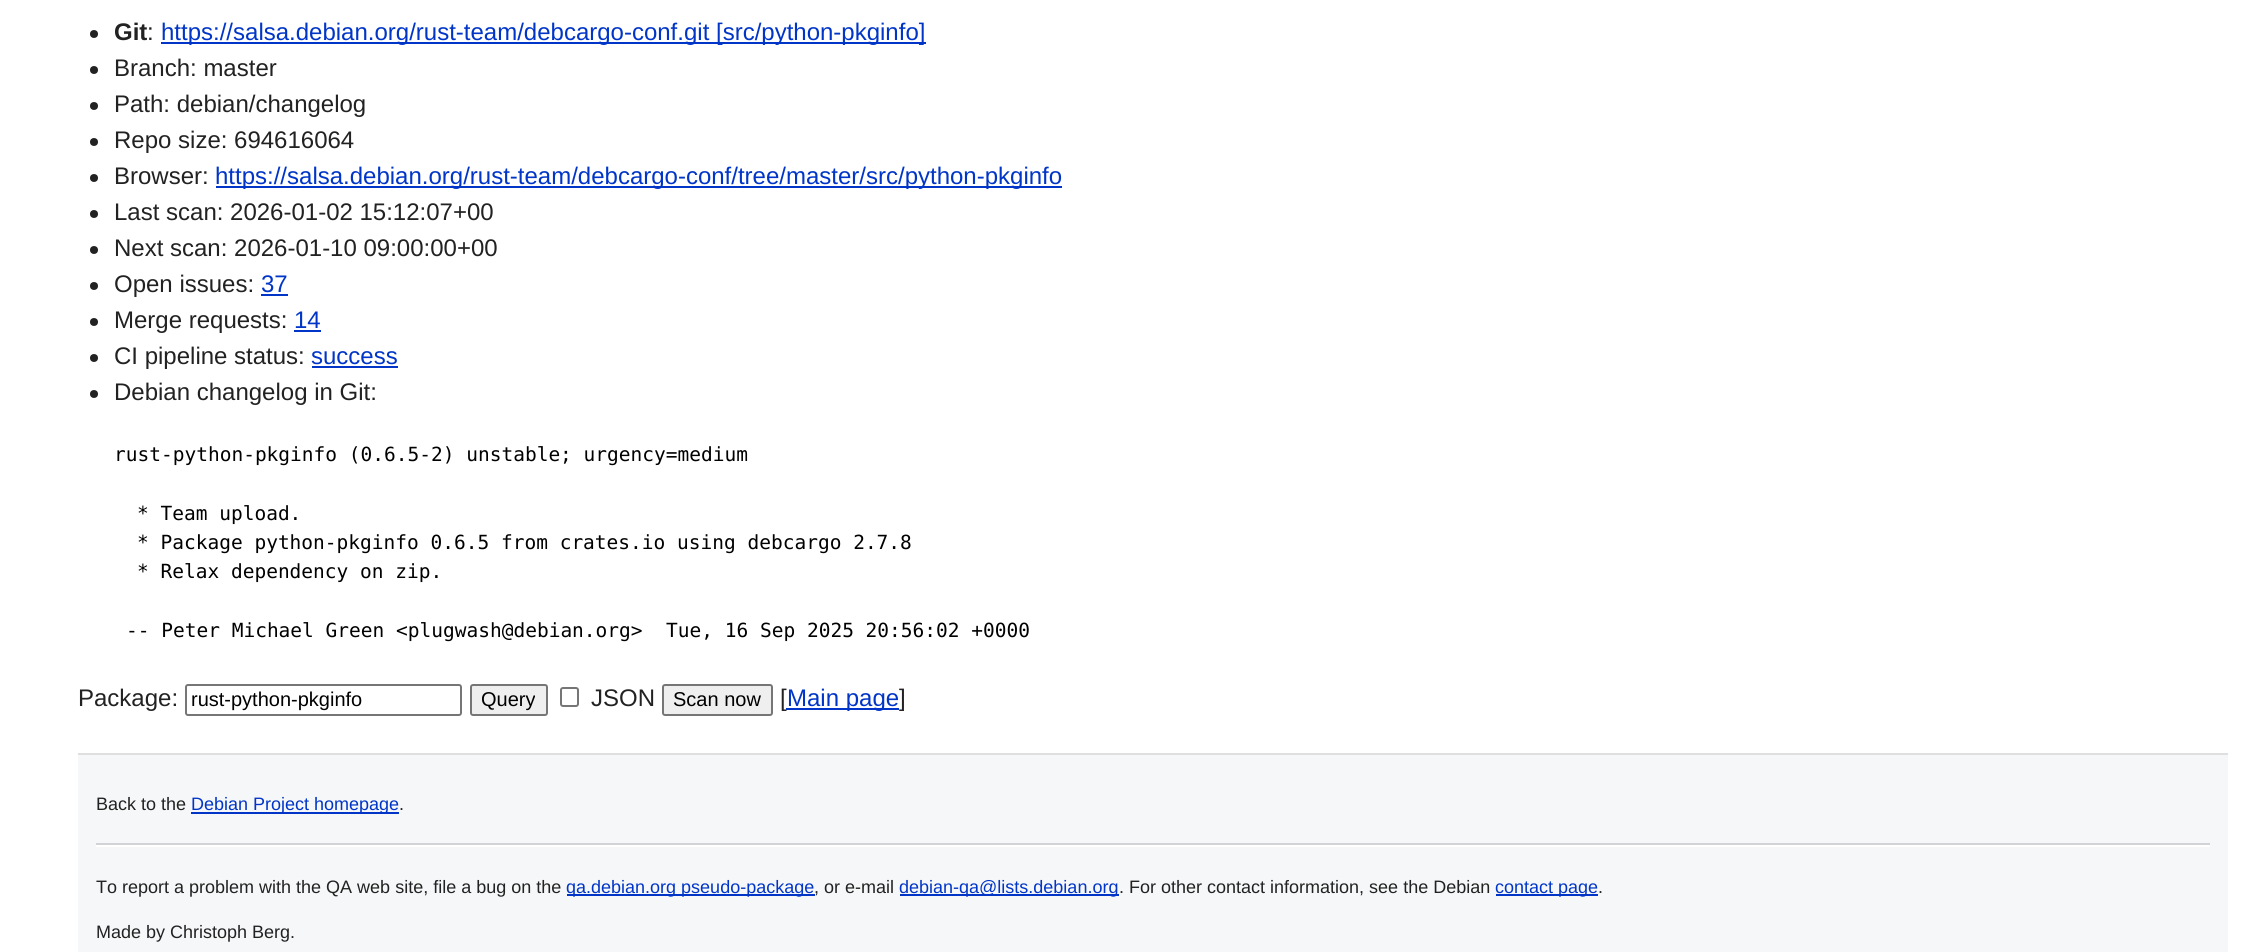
import math
import cairo


def round_path(ctx, x, y, w, h, r):
	ctx.new_sub_path()
	for i, (u, v) in enumerate([(x + w - r, y + h - r), (x + r, y + h - r), (x + r, y + r), (x + w - r, y + r)]):
		ctx.arc(u, v, r, i * math.pi / 2, (i + 1) * math.pi / 2)
	ctx.close_path()

def draw(ctx):
	ctx.set_source_rgb(1, 1, 1)
	ctx.paint()
	ctx.set_source_rgb(0.133, 0.133, 0.133)
	ctx.arc(94, 34, 4, 0, 2 * math.pi)
	ctx.fill()
	ctx.select_font_face('Liberation Sans', cairo.FONT_SLANT_NORMAL, cairo.FONT_WEIGHT_BOLD)
	ctx.set_font_size(24)
	ctx.move_to(114, 40)
	ctx.show_text('Git')
	ctx.select_font_face('Liberation Sans')
	ctx.move_to(147, 40)
	ctx.show_text(':')
	ctx.set_source_rgb(0, 0.208, 0.78)
	ctx.rectangle(161, 42, 765, 2)
	ctx.fill()
	ctx.move_to(161, 40)
	ctx.show_text('https://salsa.debian.org/rust-team/debcargo-conf.git [src/python-pkginfo]')
	ctx.set_source_rgb(0.133, 0.133, 0.133)
	ctx.new_path()
	ctx.arc(94, 70, 4, 0, 2 * math.pi)
	ctx.fill()
	ctx.move_to(114, 76)
	ctx.show_text('Branch: master')
	ctx.new_path()
	ctx.arc(94, 106, 4, 0, 2 * math.pi)
	ctx.fill()
	ctx.move_to(114, 112)
	ctx.show_text('Path: debian/changelog')
	ctx.new_path()
	ctx.arc(94, 142, 4, 0, 2 * math.pi)
	ctx.fill()
	ctx.move_to(114, 148)
	ctx.show_text('Repo size: 694616064')
	ctx.new_path()
	ctx.arc(94, 178, 4, 0, 2 * math.pi)
	ctx.fill()
	ctx.move_to(114, 184)
	ctx.show_text('Browser:')
	ctx.set_source_rgb(0, 0.208, 0.78)
	ctx.rectangle(216, 186, 846, 2)
	ctx.fill()
	ctx.move_to(215, 184)
	ctx.show_text('https://salsa.debian.org/rust-team/debcargo-conf/tree/master/src/python-pkginfo')
	ctx.set_source_rgb(0.133, 0.133, 0.133)
	ctx.new_path()
	ctx.arc(94, 214, 4, 0, 2 * math.pi)
	ctx.fill()
	ctx.move_to(114, 220)
	ctx.show_text('Last scan: 2026-01-02 15:12:07+00')
	ctx.new_path()
	ctx.arc(94, 250, 4, 0, 2 * math.pi)
	ctx.fill()
	ctx.move_to(114, 256)
	ctx.show_text('Next scan: 2026-01-10 09:00:00+00')
	ctx.new_path()
	ctx.arc(94, 286, 4, 0, 2 * math.pi)
	ctx.fill()
	ctx.move_to(114, 292)
	ctx.show_text('Open issues:')
	ctx.set_source_rgb(0, 0.208, 0.78)
	ctx.move_to(261, 292)
	ctx.show_text('37')
	ctx.rectangle(261, 294, 27, 2)
	ctx.fill()
	ctx.set_source_rgb(0.133, 0.133, 0.133)
	ctx.arc(94, 322, 4, 0, 2 * math.pi)
	ctx.fill()
	ctx.move_to(114, 328)
	ctx.show_text('Merge requests:')
	ctx.set_source_rgb(0, 0.208, 0.78)
	ctx.move_to(294, 328)
	ctx.show_text('14')
	ctx.rectangle(294, 330, 27, 2)
	ctx.fill()
	ctx.set_source_rgb(0.133, 0.133, 0.133)
	ctx.arc(94, 358, 4, 0, 2 * math.pi)
	ctx.fill()
	ctx.move_to(114, 364)
	ctx.show_text('CI pipeline status:')
	ctx.set_source_rgb(0, 0.208, 0.78)
	ctx.move_to(311, 364)
	ctx.show_text('success')
	ctx.rectangle(312, 366, 86, 2)
	ctx.fill()
	ctx.set_source_rgb(0.133, 0.133, 0.133)
	ctx.arc(94, 394, 4, 0, 2 * math.pi)
	ctx.fill()
	ctx.move_to(114, 400)
	ctx.show_text('Debian changelog in Git:')
	ctx.select_font_face('DejaVu Sans Mono')
	ctx.set_font_size(19.5)
	ctx.set_source_rgb(0, 0, 0)
	for x, y, s in [
		(114, 461, 'rust-python-pkginfo (0.6.5-2) unstable; urgency=medium'),
		(137, 520, '* Team upload.'),
		(137, 549, '* Package python-pkginfo 0.6.5 from crates.io using debcargo 2.7.8'),
		(137, 578, '* Relax dependency on zip.'),
		(126, 637, '-- Peter Michael Green <plugwash@debian.org>  Tue, 16 Sep 2025 20:56:02 +0000'),
	]:
		ctx.move_to(x, y)
		ctx.show_text(s)
	ctx.select_font_face('Liberation Sans')
	ctx.set_font_size(24)
	ctx.set_source_rgb(0.133, 0.133, 0.133)
	ctx.move_to(78, 706)
	ctx.show_text('Package:')
	round_path(ctx, 186, 685, 275, 30, 2)
	ctx.set_source_rgb(0.463, 0.463, 0.463)
	ctx.stroke()
	ctx.set_font_size(20)
	ctx.set_source_rgb(0, 0, 0)
	ctx.move_to(191, 706)
	ctx.show_text('rust-python-pkginfo')
	ctx.set_source_rgb(0.937, 0.937, 0.937)
	round_path(ctx, 471, 685, 76, 30, 2)
	ctx.fill_preserve()
	ctx.set_source_rgb(0.463, 0.463, 0.463)
	ctx.stroke()
	ctx.set_source_rgb(0, 0, 0)
	ctx.move_to(481, 706)
	ctx.show_text('Query')
	round_path(ctx, 561, 688, 17, 18, 2)
	ctx.set_source_rgb(0.463, 0.463, 0.463)
	ctx.stroke()
	ctx.set_font_size(24)
	ctx.set_source_rgb(0.133, 0.133, 0.133)
	ctx.move_to(591, 706)
	ctx.show_text('JSON')
	ctx.set_source_rgb(0.937, 0.937, 0.937)
	round_path(ctx, 663, 685, 109, 30, 2)
	ctx.fill_preserve()
	ctx.set_source_rgb(0.463, 0.463, 0.463)
	ctx.stroke()
	ctx.set_font_size(20)
	ctx.set_source_rgb(0, 0, 0)
	ctx.move_to(673, 706)
	ctx.show_text('Scan now')
	ctx.set_font_size(24)
	ctx.set_source_rgb(0.133, 0.133, 0.133)
	ctx.move_to(780, 706)
	ctx.show_text('[')
	ctx.set_source_rgb(0, 0.208, 0.78)
	ctx.rectangle(786, 708, 113, 2)
	ctx.fill()
	ctx.move_to(787, 706)
	ctx.show_text('Main page')
	ctx.set_source_rgb(0.133, 0.133, 0.133)
	ctx.move_to(899, 706)
	ctx.show_text(']')
	ctx.set_source_rgb(0.961, 0.965, 0.969)
	ctx.rectangle(78, 755, 2150, 197)
	ctx.fill()
	ctx.set_source_rgb(0.875, 0.875, 0.878)
	ctx.rectangle(78, 753, 2150, 2)
	ctx.fill()
	ctx.set_font_size(18)
	ctx.set_source_rgb(0.133, 0.133, 0.133)
	ctx.move_to(96, 810)
	ctx.show_text('Back to the')
	ctx.set_source_rgb(0, 0.208, 0.78)
	ctx.rectangle(191, 812, 208, 2)
	ctx.fill()
	ctx.move_to(191, 810)
	ctx.show_text('Debian Project homepage')
	ctx.set_source_rgb(0.133, 0.133, 0.133)
	ctx.move_to(399, 810)
	ctx.show_text('.')
	ctx.set_source_rgb(0.824, 0.827, 0.843)
	ctx.rectangle(96, 843, 2114, 2)
	ctx.fill()
	ctx.set_source_rgb(1, 1, 1)
	ctx.rectangle(96, 845, 2114, 2)
	ctx.fill()
	ctx.set_source_rgb(0.133, 0.133, 0.133)
	ctx.move_to(96, 893)
	ctx.show_text('To report a problem with the QA web site, file a bug on the')
	ctx.set_source_rgb(0, 0.208, 0.78)
	ctx.rectangle(567, 894, 248, 2)
	ctx.fill()
	ctx.move_to(566, 893)
	ctx.show_text('qa.debian.org pseudo-package')
	ctx.set_source_rgb(0.133, 0.133, 0.133)
	ctx.move_to(814, 893)
	ctx.show_text(', or e-mail')
	ctx.set_source_rgb(0, 0.208, 0.78)
	ctx.rectangle(900, 894, 219, 2)
	ctx.fill()
	ctx.move_to(899, 893)
	ctx.show_text('debian-qa@lists.debian.org')
	ctx.set_source_rgb(0.133, 0.133, 0.133)
	ctx.move_to(1119, 893)
	ctx.show_text('. For other contact information, see the Debian')
	ctx.set_source_rgb(0, 0.208, 0.78)
	ctx.rectangle(1496, 894, 102, 2)
	ctx.fill()
	ctx.move_to(1495, 893)
	ctx.show_text('contact page')
	ctx.set_source_rgb(0.133, 0.133, 0.133)
	ctx.move_to(1598, 893)
	ctx.show_text('.')
	ctx.move_to(96, 938)
	ctx.show_text('Made by Christoph Berg.')


surface = cairo.ImageSurface(cairo.FORMAT_RGB24, 2242, 952)
ctx = cairo.Context(surface)
options = cairo.FontOptions()
options.set_hint_metrics(cairo.HINT_METRICS_OFF)
options.set_hint_style(cairo.HINT_STYLE_NONE)
ctx.set_font_options(options)
ctx.set_miter_limit(4)
draw(ctx)
surface.write_to_png('image.png')
